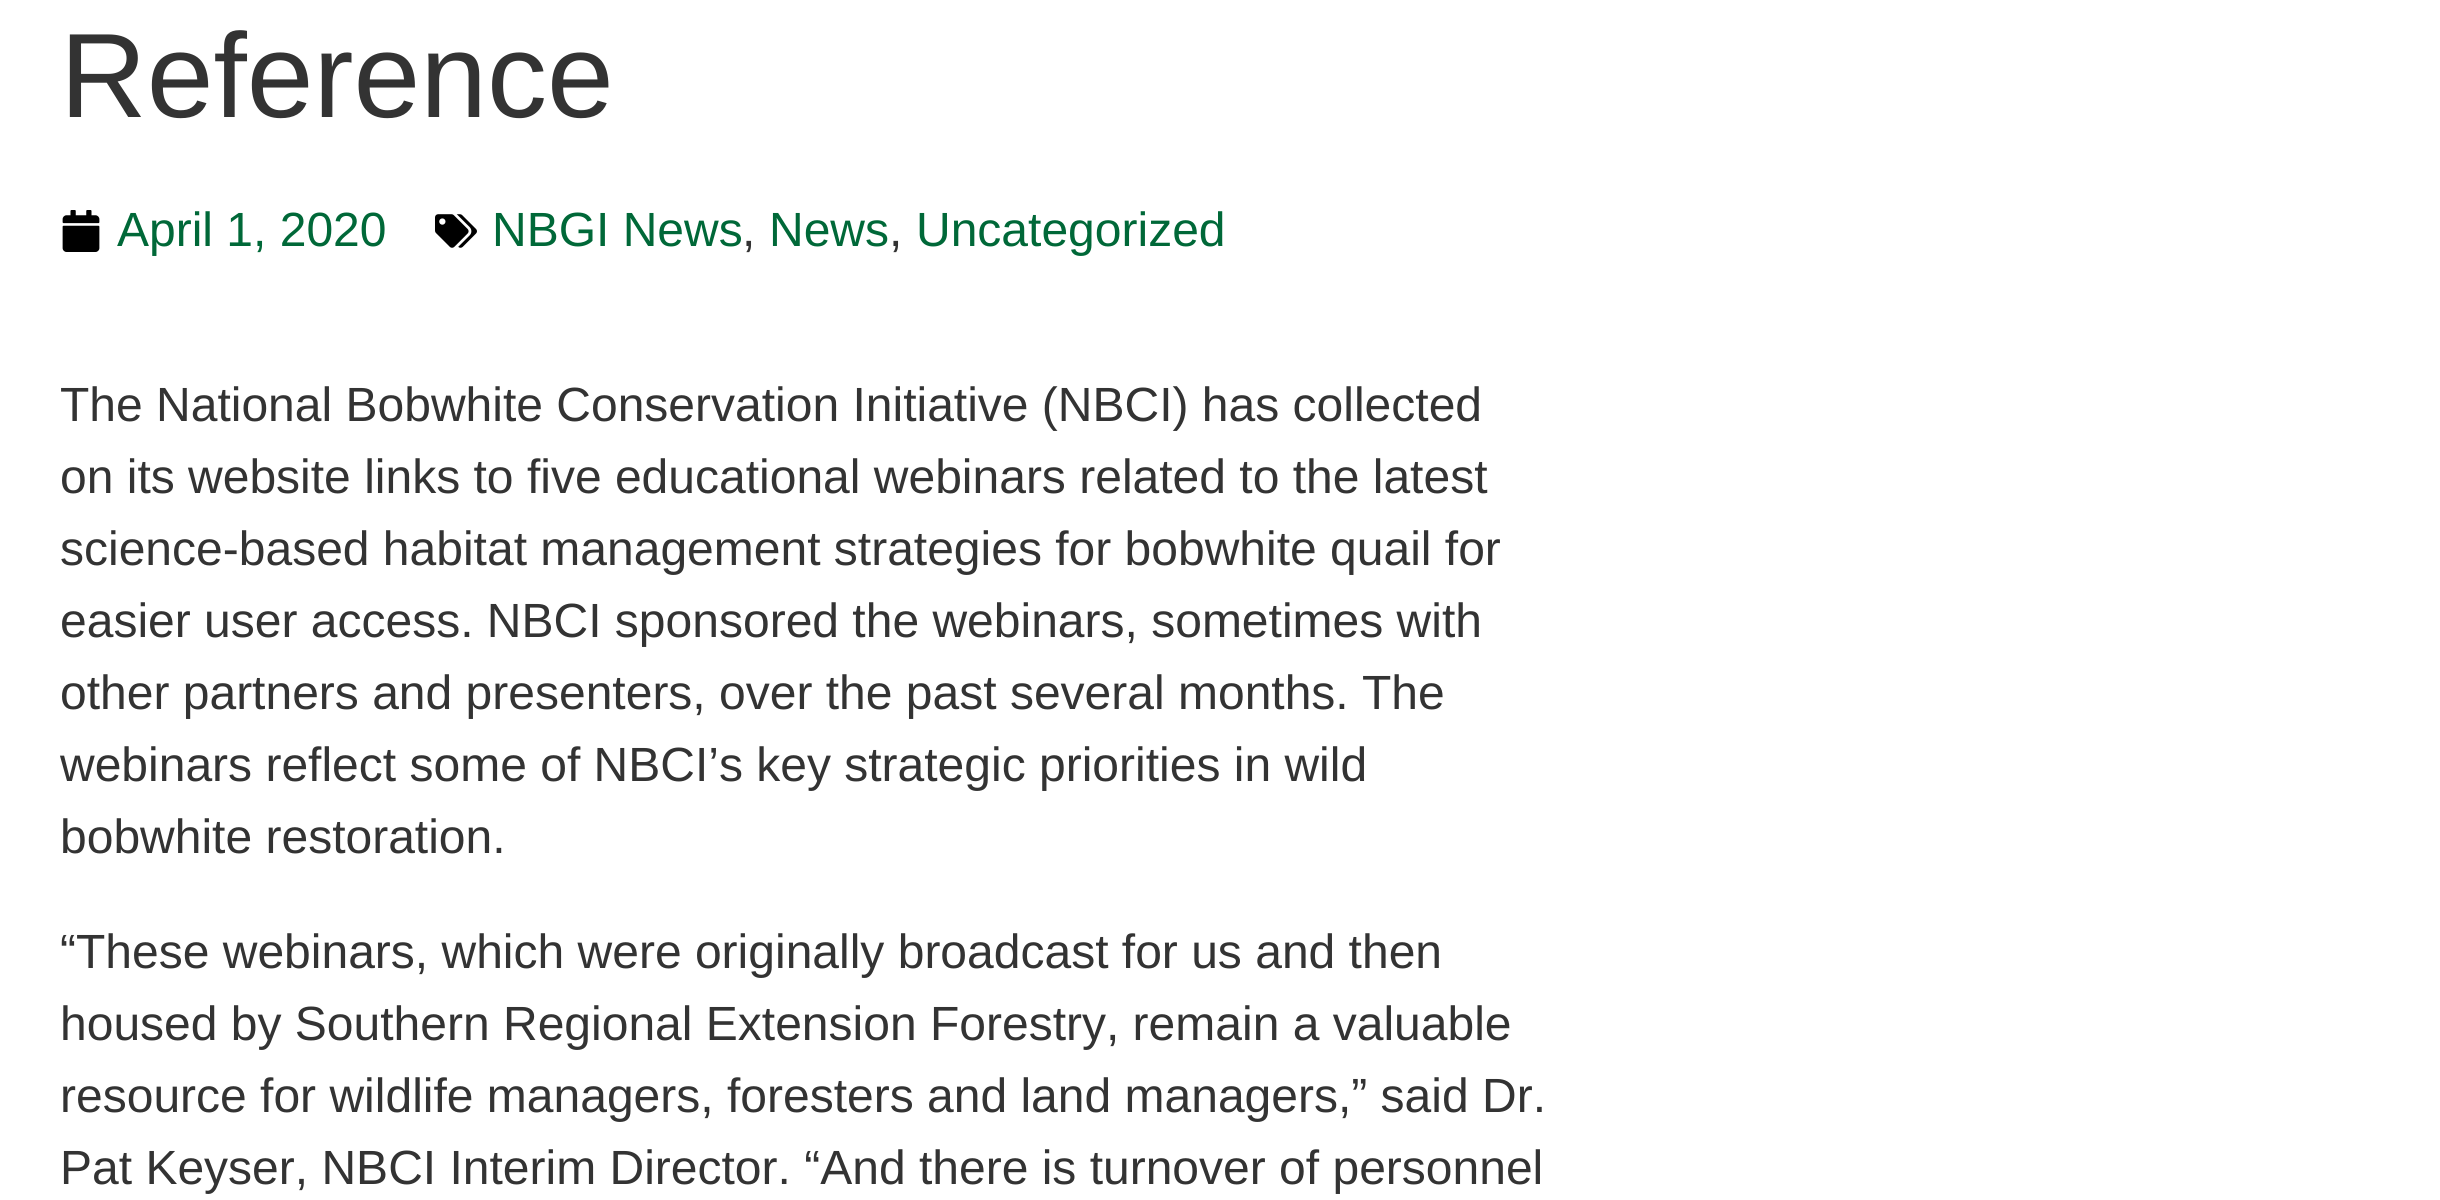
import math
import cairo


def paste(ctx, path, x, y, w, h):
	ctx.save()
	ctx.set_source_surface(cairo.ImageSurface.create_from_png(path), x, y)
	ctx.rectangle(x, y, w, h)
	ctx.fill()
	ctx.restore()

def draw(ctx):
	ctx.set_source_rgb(1, 1, 1)
	ctx.paint()
	ctx.select_font_face('Liberation Sans')
	ctx.set_font_size(120)
	ctx.set_source_rgb(0.2, 0.2, 0.2)
	ctx.move_to(60, 117)
	ctx.show_text('Reference')
	paste(ctx, 'media/1.png', 62, 210, 38, 42)
	ctx.set_font_size(48)
	ctx.set_source_rgb(0, 0.408, 0.22)
	ctx.move_to(117, 246)
	ctx.show_text('April 1, 2020')
	paste(ctx, 'media/2.png', 435, 214, 42, 34)
	ctx.move_to(492, 246)
	ctx.show_text('NBGI News')
	ctx.set_source_rgb(0.2, 0.2, 0.2)
	ctx.move_to(742, 246)
	ctx.show_text(',')
	ctx.set_source_rgb(0, 0.408, 0.22)
	ctx.move_to(769, 246)
	ctx.show_text('News')
	ctx.set_source_rgb(0.2, 0.2, 0.2)
	ctx.move_to(889, 246)
	ctx.show_text(',')
	ctx.set_source_rgb(0, 0.408, 0.22)
	ctx.move_to(916, 246)
	ctx.show_text('Uncategorized')
	ctx.set_source_rgb(0.2, 0.2, 0.2)
	for x, y, s in [
		(60, 421, 'The National Bobwhite Conservation Initiative (NBCI) has collected'),
		(60, 493, 'on its website links to five educational webinars related to the latest'),
		(60, 565, 'science-based habitat management strategies for bobwhite quail for'),
		(60, 637, 'easier user access. NBCI sponsored the webinars, sometimes with'),
		(60, 709, 'other partners and presenters, over the past several months. The'),
		(60, 781, 'webinars reflect some of NBCI’s key strategic priorities in wild'),
		(60, 853, 'bobwhite restoration.'),
		(60, 968, '“These webinars, which were originally broadcast for us and then'),
		(60, 1040, 'housed by Southern Regional Extension Forestry, remain a valuable'),
		(60, 1112, 'resource for wildlife managers, foresters and land managers,” said Dr.'),
		(60, 1184, 'Pat Keyser, NBCI Interim Director. “And there is turnover of personnel'),
	]:
		ctx.move_to(x, y)
		ctx.show_text(s)


surface = cairo.ImageSurface(cairo.FORMAT_RGB24, 2440, 1200)
ctx = cairo.Context(surface)
options = cairo.FontOptions()
options.set_hint_metrics(cairo.HINT_METRICS_OFF)
options.set_hint_style(cairo.HINT_STYLE_NONE)
ctx.set_font_options(options)
ctx.set_miter_limit(4)
draw(ctx)
surface.write_to_png('image.png')
